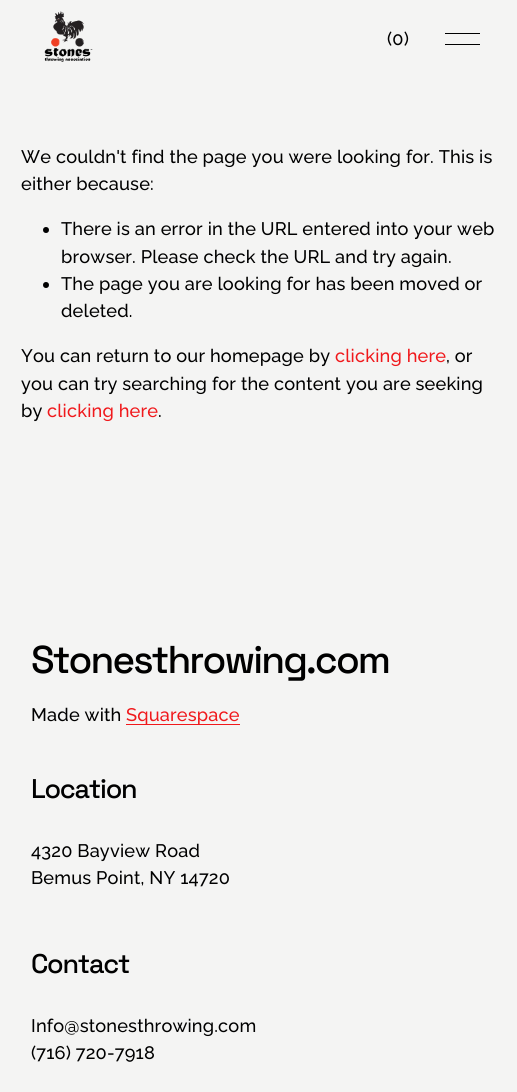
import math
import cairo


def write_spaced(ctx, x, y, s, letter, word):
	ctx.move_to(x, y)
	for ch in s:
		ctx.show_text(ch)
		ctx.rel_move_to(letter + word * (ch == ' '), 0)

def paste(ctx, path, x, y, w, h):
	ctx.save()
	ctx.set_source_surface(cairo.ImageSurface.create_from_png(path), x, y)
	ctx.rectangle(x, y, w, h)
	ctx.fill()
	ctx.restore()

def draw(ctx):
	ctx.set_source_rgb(0.957, 0.957, 0.953)
	ctx.paint()
	paste(ctx, 'media/1.png', 44, 11, 49, 51)
	ctx.select_font_face('Raleway Medium')
	ctx.set_font_size(18.15)
	ctx.set_source_rgb(0, 0, 0)
	write_spaced(ctx, 387, 45, '(0)', 0.18, 0)
	ctx.rectangle(445, 33, 35, 1)
	ctx.fill()
	ctx.rectangle(445, 44, 35, 1)
	ctx.fill()
	write_spaced(ctx, 21, 163, 'We couldn\'t find the page you were looking for. This is', 0.18, 0)
	write_spaced(ctx, 21, 190, 'either because:', 0.18, 0)
	ctx.new_path()
	ctx.arc(46, 230, 3, 0, 2 * math.pi)
	ctx.fill()
	write_spaced(ctx, 61, 235, 'There is an error in the URL entered into your web', 0.18, 0)
	write_spaced(ctx, 61, 263, 'browser. Please check the URL and try again.', 0.18, 0)
	ctx.new_path()
	ctx.arc(46, 285, 3, 0, 2 * math.pi)
	ctx.fill()
	for x, y, s in [
		(61, 290, 'The page you are looking for has been moved or'),
		(61, 317, 'deleted.'),
		(21, 362, 'You can return to our homepage by'),
	]:
		write_spaced(ctx, x, y, s, 0.18, 0)
	ctx.set_source_rgb(0.941, 0.098, 0.11)
	write_spaced(ctx, 335, 362, 'clicking here', 0.18, 0)
	ctx.set_source_rgb(0, 0, 0)
	for x, y, s in [
		(446, 362, ', or'),
		(21, 390, 'you can try searching for the content you are seeking'),
		(21, 417, 'by'),
	]:
		write_spaced(ctx, x, y, s, 0.18, 0)
	ctx.set_source_rgb(0.941, 0.098, 0.11)
	write_spaced(ctx, 47, 417, 'clicking here', 0.18, 0)
	ctx.set_source_rgb(0, 0, 0)
	write_spaced(ctx, 158, 417, '.', 0.18, 0)
	ctx.select_font_face('Space Grotesk Medium')
	ctx.set_font_size(38.75)
	write_spaced(ctx, 31, 673, 'Stonesthrowing.com', -1.9, 0)
	ctx.select_font_face('Raleway Medium')
	ctx.set_font_size(18.15)
	write_spaced(ctx, 31, 721, 'Made with', 0.18, 0)
	ctx.set_source_rgb(0.941, 0.098, 0.11)
	ctx.rectangle(126, 724, 114, 1)
	ctx.fill()
	write_spaced(ctx, 126, 721, 'Squarespace', 0.18, 0)
	ctx.select_font_face('Space Grotesk Medium')
	ctx.set_font_size(27)
	ctx.set_source_rgb(0, 0, 0)
	write_spaced(ctx, 31, 798, 'Location', -1.25, 0)
	ctx.select_font_face('Raleway Medium')
	ctx.set_font_size(18.15)
	write_spaced(ctx, 31, 857, '4320 Bayview Road', 0.18, 0)
	write_spaced(ctx, 31, 884, 'Bemus Point, NY 14720', 0.18, 0)
	ctx.select_font_face('Space Grotesk Medium')
	ctx.set_font_size(27)
	write_spaced(ctx, 31, 973, 'Contact', -1.25, 0)
	ctx.select_font_face('Raleway Medium')
	ctx.set_font_size(18.15)
	write_spaced(ctx, 31, 1032, 'Info@stonesthrowing.com', 0.18, 0)
	write_spaced(ctx, 31, 1059, '(716) 720-7918', 0.18, 0)


surface = cairo.ImageSurface(cairo.FORMAT_RGB24, 517, 1092)
ctx = cairo.Context(surface)
options = cairo.FontOptions()
options.set_hint_metrics(cairo.HINT_METRICS_OFF)
options.set_hint_style(cairo.HINT_STYLE_NONE)
ctx.set_font_options(options)
ctx.set_miter_limit(4)
draw(ctx)
surface.write_to_png('image.png')
